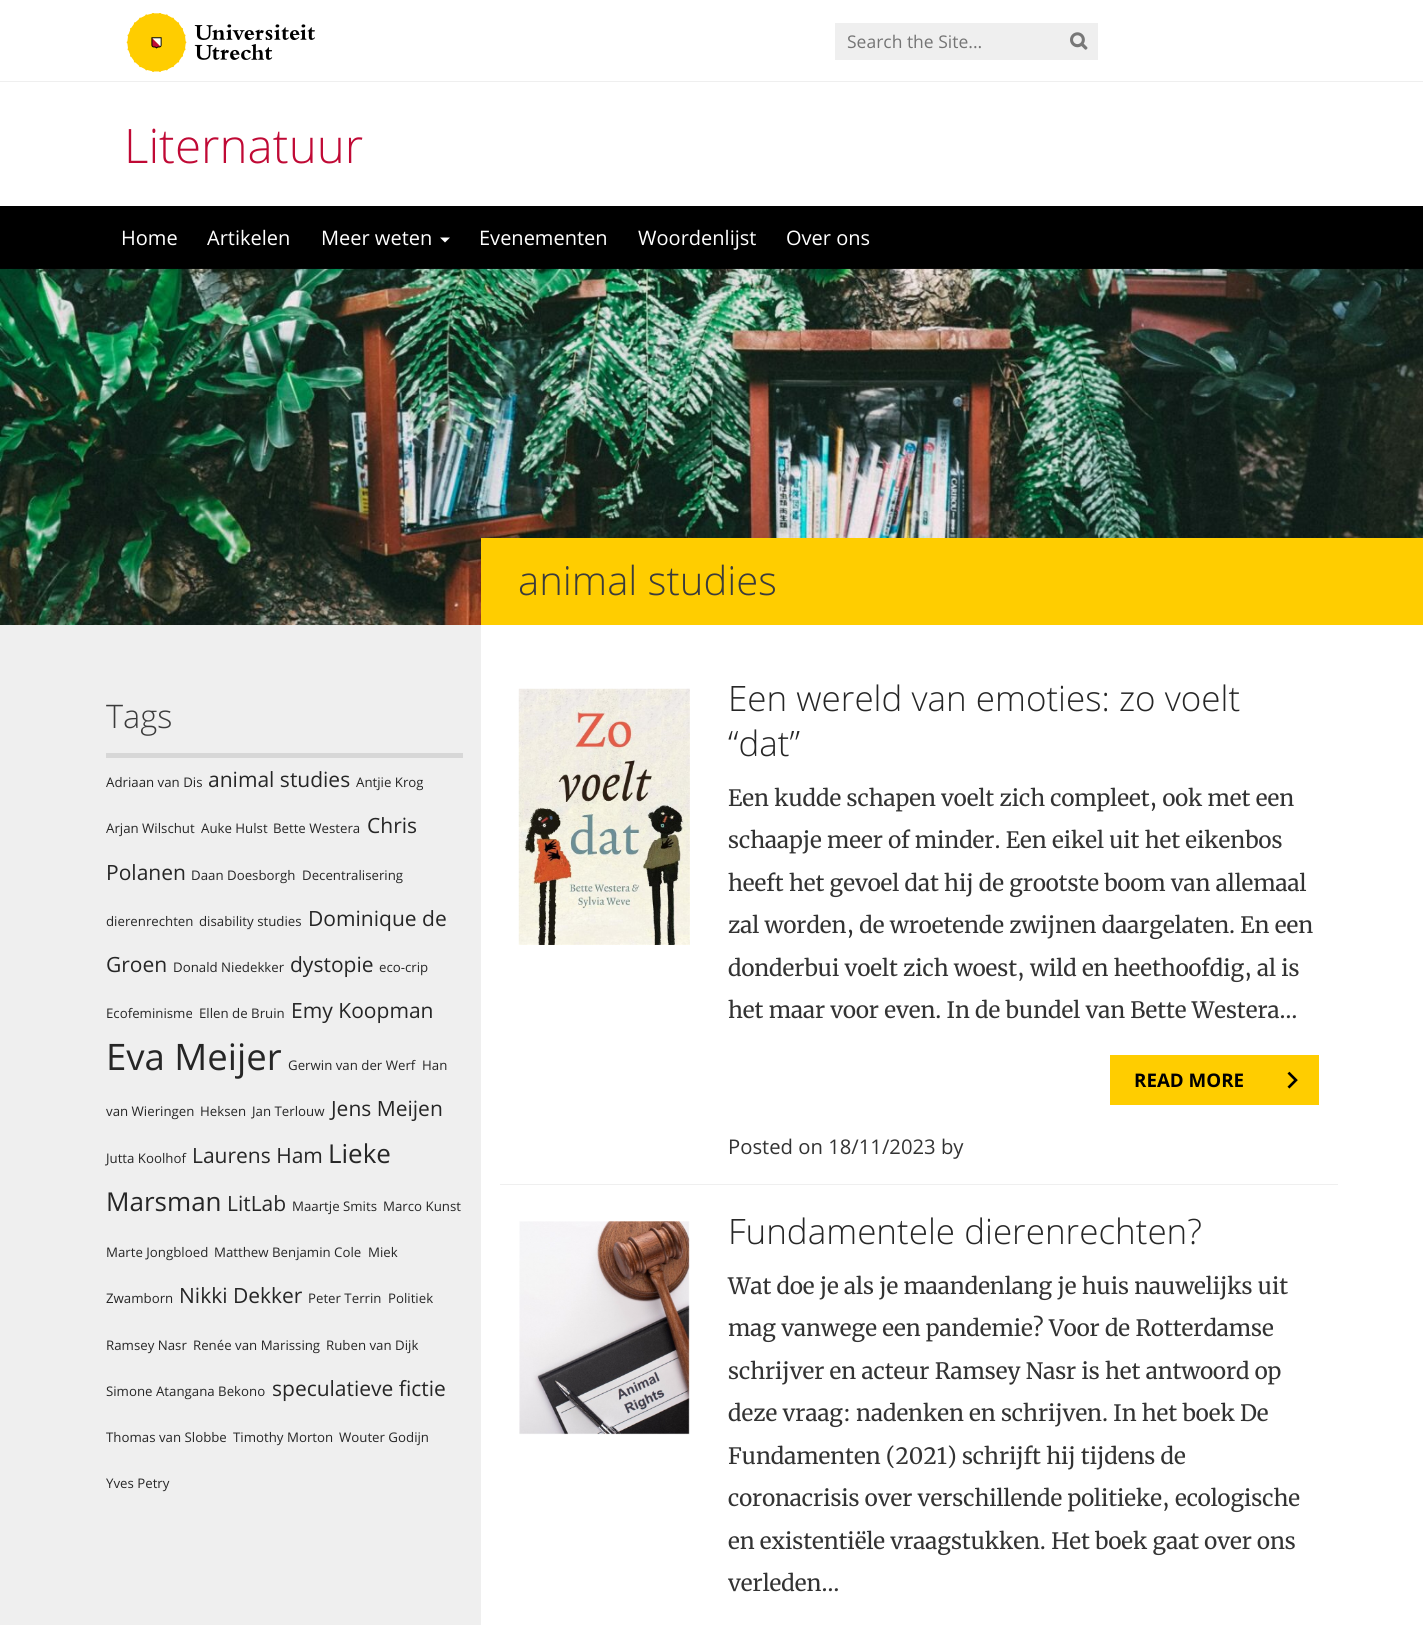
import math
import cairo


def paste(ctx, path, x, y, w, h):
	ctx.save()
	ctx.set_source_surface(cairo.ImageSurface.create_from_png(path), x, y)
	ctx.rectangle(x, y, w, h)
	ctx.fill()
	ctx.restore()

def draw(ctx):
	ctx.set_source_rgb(1, 1, 1)
	ctx.paint()
	ctx.set_source_rgb(0.937, 0.937, 0.937)
	ctx.rectangle(0, 81, 1423, 1)
	ctx.fill()
	paste(ctx, 'media/1.png', 126, 13, 189, 59)
	ctx.rectangle(835, 23, 263, 37)
	ctx.fill()
	ctx.select_font_face('Open Sans')
	ctx.set_font_size(17.5)
	ctx.set_source_rgb(0.459, 0.459, 0.459)
	ctx.move_to(847, 48)
	ctx.show_text('Search the Site...')
	paste(ctx, 'media/2.png', 1070, 32, 18, 18)
	ctx.select_font_face('Open Sans Light')
	ctx.set_font_size(47.5)
	ctx.set_source_rgb(0.753, 0.039, 0.208)
	ctx.move_to(124, 163)
	ctx.show_text('Liternatuur')
	ctx.set_source_rgb(0, 0, 0)
	ctx.rectangle(0, 206, 1423, 63)
	ctx.fill()
	ctx.select_font_face('Open Sans')
	ctx.set_font_size(20)
	ctx.set_source_rgb(1, 1, 1)
	for x, y, s in [
		(121, 245, 'Home'),
		(207, 245, 'Artikelen'),
		(321, 245, 'Meer weten'),
	]:
		ctx.move_to(x, y)
		ctx.show_text(s)
	ctx.new_path()
	ctx.move_to(440, 237.5)
	ctx.line_to(450, 237.5)
	ctx.line_to(445, 242.5)
	ctx.close_path()
	ctx.fill()
	for x, y, s in [
		(479, 245, 'Evenementen'),
		(638, 245, 'Woordenlijst'),
		(786, 245, 'Over ons'),
	]:
		ctx.move_to(x, y)
		ctx.show_text(s)
	ctx.set_source_rgb(0.937, 0.937, 0.937)
	ctx.rectangle(0, 625, 481, 1000)
	ctx.fill()
	paste(ctx, 'media/3.png', 0, 268, 1423, 357)
	ctx.set_source_rgb(1, 0.804, 0)
	ctx.rectangle(481, 538, 942, 87)
	ctx.fill()
	ctx.set_source_rgb(0.843, 0.843, 0.843)
	ctx.rectangle(106, 753, 357, 5)
	ctx.fill()
	ctx.select_font_face('Open Sans Light')
	ctx.set_font_size(32.5)
	ctx.set_source_rgb(0.231, 0.231, 0.231)
	ctx.move_to(106, 728)
	ctx.show_text('Tags')
	ctx.select_font_face('Open Sans')
	ctx.set_font_size(13.25)
	ctx.set_source_rgb(0.149, 0.149, 0.149)
	ctx.move_to(106, 787)
	ctx.show_text('Adriaan van Dis')
	ctx.set_font_size(21)
	ctx.move_to(208, 787)
	ctx.show_text('animal studies')
	ctx.set_font_size(13.25)
	for x, y, s in [
		(356, 787, 'Antjie Krog'),
		(106, 833, 'Arjan Wilschut'),
		(201, 833, 'Auke Hulst'),
		(273, 833, 'Bette Westera'),
	]:
		ctx.move_to(x, y)
		ctx.show_text(s)
	ctx.set_font_size(21)
	ctx.move_to(367, 833)
	ctx.show_text('Chris')
	ctx.move_to(106, 880)
	ctx.show_text('Polanen')
	ctx.set_font_size(13.25)
	for x, y, s in [
		(191, 880, 'Daan Doesborgh'),
		(302, 880, 'Decentralisering'),
		(106, 926, 'dierenrechten'),
		(199, 926, 'disability studies'),
	]:
		ctx.move_to(x, y)
		ctx.show_text(s)
	ctx.set_font_size(21)
	ctx.move_to(308, 926)
	ctx.show_text('Dominique de')
	ctx.move_to(106, 972)
	ctx.show_text('Groen')
	ctx.set_font_size(13.25)
	ctx.move_to(173, 972)
	ctx.show_text('Donald Niedekker')
	ctx.set_font_size(21)
	ctx.move_to(290, 972)
	ctx.show_text('dystopie')
	ctx.set_font_size(13.25)
	for x, y, s in [
		(379, 972, 'eco-crip'),
		(106, 1018, 'Ecofeminisme'),
		(199, 1018, 'Ellen de Bruin'),
	]:
		ctx.move_to(x, y)
		ctx.show_text(s)
	ctx.set_font_size(21)
	ctx.move_to(291, 1018)
	ctx.show_text('Emy Koopman')
	ctx.set_font_size(36.5)
	ctx.move_to(106, 1070)
	ctx.show_text('Eva Meijer')
	ctx.set_font_size(13.25)
	for x, y, s in [
		(288, 1070, 'Gerwin van der Werf'),
		(422, 1070, 'Han'),
		(106, 1116, 'van Wieringen'),
		(200, 1116, 'Heksen'),
		(252, 1116, 'Jan Terlouw'),
	]:
		ctx.move_to(x, y)
		ctx.show_text(s)
	ctx.set_font_size(21)
	ctx.move_to(331, 1116)
	ctx.show_text('Jens Meijen')
	ctx.set_font_size(13.25)
	ctx.move_to(106, 1163)
	ctx.show_text('Jutta Koolhof')
	ctx.set_font_size(21)
	ctx.move_to(192, 1163)
	ctx.show_text('Laurens Ham')
	ctx.set_font_size(26)
	ctx.move_to(328, 1163)
	ctx.show_text('Lieke')
	ctx.move_to(106, 1211)
	ctx.show_text('Marsman')
	ctx.set_font_size(21)
	ctx.move_to(227, 1211)
	ctx.show_text('LitLab')
	ctx.set_font_size(13.25)
	for x, y, s in [
		(292, 1211, 'Maartje Smits'),
		(383, 1211, 'Marco Kunst'),
		(106, 1257, 'Marte Jongbloed'),
		(214, 1257, 'Matthew Benjamin Cole'),
		(368, 1257, 'Miek'),
		(106, 1303, 'Zwamborn'),
	]:
		ctx.move_to(x, y)
		ctx.show_text(s)
	ctx.set_font_size(21)
	ctx.move_to(179, 1303)
	ctx.show_text('Nikki Dekker')
	ctx.set_font_size(13.25)
	for x, y, s in [
		(308, 1303, 'Peter Terrin'),
		(388, 1303, 'Politiek'),
		(106, 1350, 'Ramsey Nasr'),
		(193, 1350, 'Renée van Marissing'),
		(326, 1350, 'Ruben van Dijk'),
		(106, 1396, 'Simone Atangana Bekono'),
	]:
		ctx.move_to(x, y)
		ctx.show_text(s)
	ctx.set_font_size(21)
	ctx.move_to(272, 1396)
	ctx.show_text('speculatieve fictie')
	ctx.set_font_size(13.25)
	for x, y, s in [
		(106, 1442, 'Thomas van Slobbe'),
		(233, 1442, 'Timothy Morton'),
		(339, 1442, 'Wouter Godijn'),
		(106, 1488, 'Yves Petry'),
	]:
		ctx.move_to(x, y)
		ctx.show_text(s)
	ctx.select_font_face('Open Sans Light')
	ctx.set_font_size(40)
	ctx.set_source_rgb(0.231, 0.231, 0.231)
	ctx.move_to(518, 595)
	ctx.show_text('animal studies')
	ctx.set_source_rgb(0.937, 0.937, 0.937)
	ctx.rectangle(500, 1184, 838, 1)
	ctx.fill()
	paste(ctx, 'media/4.png', 518, 688, 172, 257)
	ctx.set_font_size(35)
	ctx.set_source_rgb(0.149, 0.149, 0.149)
	ctx.move_to(728, 711)
	ctx.show_text('Een wereld van emoties: zo voelt')
	ctx.move_to(728, 756)
	ctx.show_text('“dat”')
	ctx.select_font_face('Merriweather')
	ctx.set_font_size(22.5)
	ctx.set_source_rgb(0.2, 0.2, 0.2)
	for x, y, s in [
		(728, 806, 'Een kudde schapen voelt zich compleet, ook met een'),
		(728, 848, 'schaapje meer of minder. Een eikel uit het eikenbos'),
		(728, 891, 'heeft het gevoel dat hij de grootste boom van allemaal'),
		(728, 933, 'zal worden, de wroetende zwijnen daargelaten. En een'),
		(728, 976, 'donderbui voelt zich woest, wild en heethoofdig, al is'),
		(728, 1018, 'het maar voor even. In de bundel van Bette Westera…'),
	]:
		ctx.move_to(x, y)
		ctx.show_text(s)
	ctx.set_source_rgb(1, 0.804, 0)
	ctx.rectangle(1110, 1055, 209, 50)
	ctx.fill()
	ctx.select_font_face('Open Sans', cairo.FONT_SLANT_NORMAL, cairo.FONT_WEIGHT_BOLD)
	ctx.set_font_size(18.75)
	ctx.set_source_rgb(0, 0, 0)
	ctx.move_to(1134, 1087)
	ctx.show_text('READ MORE')
	paste(ctx, 'media/5.png', 1287, 1071, 11, 18)
	ctx.select_font_face('Open Sans')
	ctx.set_font_size(20.25)
	ctx.set_source_rgb(0.2, 0.2, 0.2)
	ctx.move_to(728, 1154)
	ctx.show_text('Posted on 18/11/2023 by')
	paste(ctx, 'media/6.png', 519, 1221, 171, 214)
	ctx.select_font_face('Open Sans Light')
	ctx.set_font_size(35)
	ctx.set_source_rgb(0.149, 0.149, 0.149)
	ctx.move_to(728, 1244)
	ctx.show_text('Fundamentele dierenrechten?')
	ctx.select_font_face('Merriweather')
	ctx.set_font_size(22.5)
	ctx.set_source_rgb(0.2, 0.2, 0.2)
	for x, y, s in [
		(728, 1294, 'Wat doe je als je maandenlang je huis nauwelijks uit'),
		(728, 1336, 'mag vanwege een pandemie? Voor de Rotterdamse'),
		(728, 1379, 'schrijver en acteur Ramsey Nasr is het antwoord op'),
		(728, 1421, 'deze vraag: nadenken en schrijven. In het boek De'),
		(728, 1464, 'Fundamenten (2021) schrijft hij tijdens de'),
		(728, 1506, 'coronacrisis over verschillende politieke, ecologische'),
		(728, 1549, 'en existentiële vraagstukken. Het boek gaat over ons'),
		(728, 1591, 'verleden…'),
	]:
		ctx.move_to(x, y)
		ctx.show_text(s)


surface = cairo.ImageSurface(cairo.FORMAT_RGB24, 1423, 1625)
ctx = cairo.Context(surface)
options = cairo.FontOptions()
options.set_hint_metrics(cairo.HINT_METRICS_OFF)
options.set_hint_style(cairo.HINT_STYLE_NONE)
ctx.set_font_options(options)
ctx.set_miter_limit(4)
draw(ctx)
surface.write_to_png('image.png')
